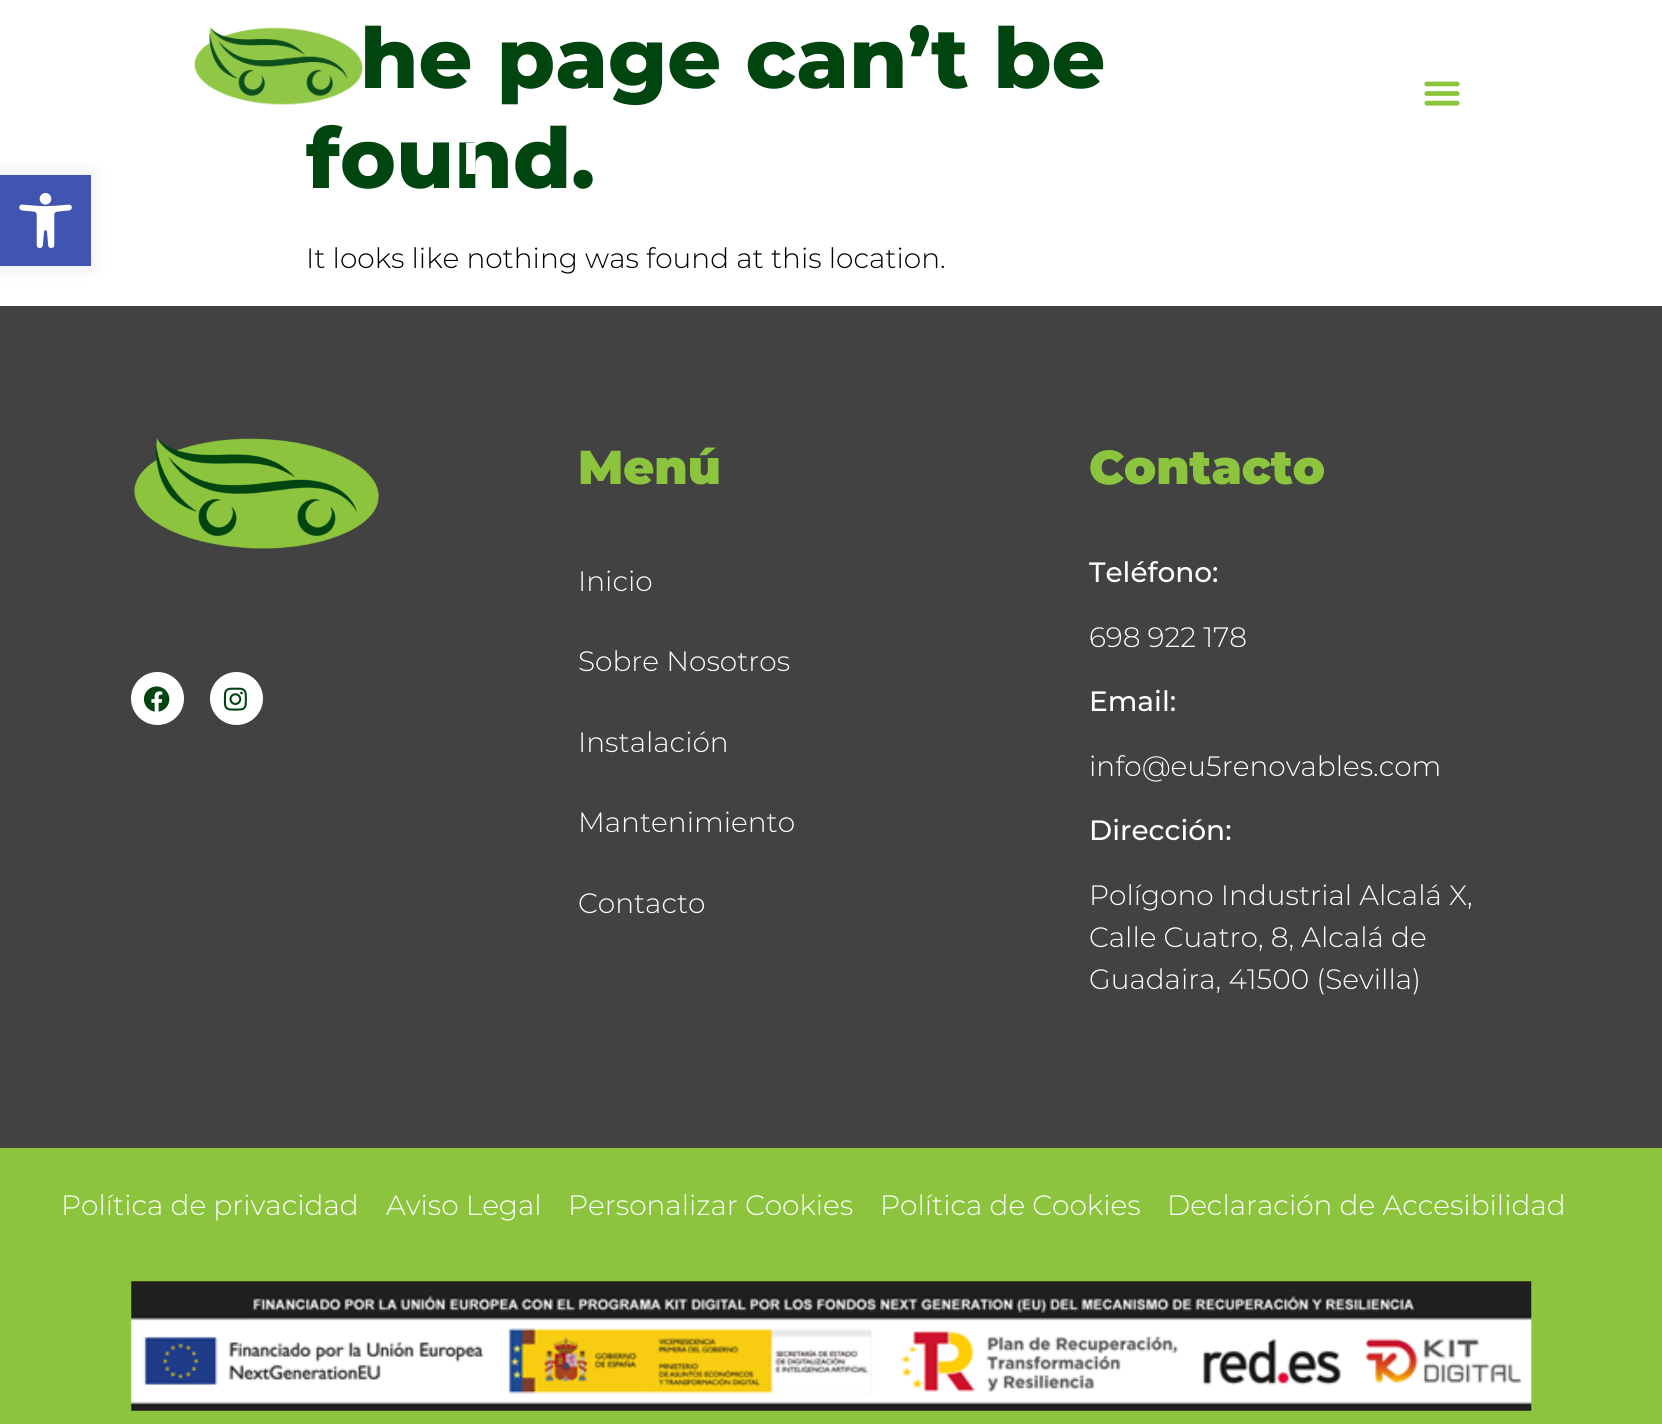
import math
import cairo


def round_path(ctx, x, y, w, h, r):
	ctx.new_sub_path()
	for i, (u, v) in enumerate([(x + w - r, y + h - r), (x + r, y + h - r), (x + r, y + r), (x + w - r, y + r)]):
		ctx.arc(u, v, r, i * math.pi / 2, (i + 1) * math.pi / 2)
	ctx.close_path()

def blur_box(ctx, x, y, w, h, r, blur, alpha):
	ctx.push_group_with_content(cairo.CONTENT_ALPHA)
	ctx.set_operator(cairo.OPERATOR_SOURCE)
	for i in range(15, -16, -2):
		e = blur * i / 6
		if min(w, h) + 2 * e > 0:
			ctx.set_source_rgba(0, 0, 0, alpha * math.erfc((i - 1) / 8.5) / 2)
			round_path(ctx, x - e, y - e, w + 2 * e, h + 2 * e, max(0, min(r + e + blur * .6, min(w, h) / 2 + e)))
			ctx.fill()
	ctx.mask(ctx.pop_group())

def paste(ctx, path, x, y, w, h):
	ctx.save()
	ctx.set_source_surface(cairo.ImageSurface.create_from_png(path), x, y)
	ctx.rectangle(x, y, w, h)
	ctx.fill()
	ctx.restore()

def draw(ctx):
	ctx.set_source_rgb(1, 1, 1)
	ctx.paint()
	ctx.select_font_face('Montserrat ExtraBold')
	ctx.set_font_size(84)
	ctx.set_source_rgb(0, 0.271, 0.063)
	ctx.move_to(360, 88)
	ctx.show_text('he page can’t be')
	ctx.move_to(306, 188)
	ctx.show_text('found.')
	ctx.select_font_face('Montserrat Light')
	ctx.set_font_size(28)
	ctx.set_source_rgb(0, 0, 0)
	ctx.move_to(306, 268)
	ctx.show_text('It looks like nothing was found at this location.')
	ctx.set_source_rgb(0, 0, 0)
	blur_box(ctx, 0, 175, 91, 91, 0, 9, 0.1)
	ctx.set_source_rgb(0.251, 0.329, 0.698)
	ctx.rectangle(0, 175, 91, 91)
	ctx.fill()
	paste(ctx, 'media/1.png', 19, 193, 53, 56)
	paste(ctx, 'media/2.png', 1424, 81, 36, 25)
	paste(ctx, 'media/3.png', 194, 27, 169, 78)
	ctx.select_font_face('Montserrat Black')
	ctx.set_font_size(42)
	ctx.set_source_rgb(1, 1, 1)
	ctx.move_to(464, 174)
	ctx.show_text('l')
	ctx.set_source_rgb(0.259, 0.259, 0.259)
	ctx.rectangle(0, 306, 1662, 842)
	ctx.fill()
	paste(ctx, 'media/4.png', 134, 438, 245, 111)
	ctx.set_source_rgb(1, 1, 1)
	ctx.arc(157.5, 698.5, 26.5, 0, 2 * math.pi)
	ctx.fill()
	paste(ctx, 'media/5.png', 144, 686, 26, 26)
	ctx.arc(236.5, 698.5, 26.5, 0, 2 * math.pi)
	ctx.fill()
	paste(ctx, 'media/6.png', 223, 687, 24, 24)
	ctx.set_font_size(47.5)
	ctx.set_source_rgb(0.549, 0.773, 0.239)
	ctx.move_to(578, 484)
	ctx.show_text('Menú')
	ctx.select_font_face('Montserrat Light')
	ctx.set_font_size(28)
	ctx.set_source_rgb(1, 1, 1)
	for x, y, s in [
		(578, 591, 'Inicio'),
		(578, 671, 'Sobre Nosotros'),
		(578, 752, 'Instalación'),
		(578, 832, 'Mantenimiento'),
		(578, 913, 'Contacto'),
	]:
		ctx.move_to(x, y)
		ctx.show_text(s)
	ctx.select_font_face('Montserrat Black')
	ctx.set_font_size(47.5)
	ctx.set_source_rgb(0.549, 0.773, 0.239)
	ctx.move_to(1089, 484)
	ctx.show_text('Contacto')
	ctx.select_font_face('Montserrat Medium')
	ctx.set_font_size(28)
	ctx.set_source_rgb(1, 1, 1)
	ctx.move_to(1089, 582)
	ctx.show_text('Teléfono:')
	ctx.select_font_face('Montserrat Light')
	ctx.move_to(1089, 647)
	ctx.show_text('698 922 178')
	ctx.select_font_face('Montserrat Medium')
	ctx.move_to(1089, 711)
	ctx.show_text('Email:')
	ctx.select_font_face('Montserrat Light')
	ctx.move_to(1089, 776)
	ctx.show_text('info@eu5renovables.com')
	ctx.select_font_face('Montserrat Medium')
	ctx.move_to(1089, 840)
	ctx.show_text('Dirección:')
	ctx.select_font_face('Montserrat Light')
	for x, y, s in [
		(1089, 905, 'Polígono Industrial Alcalá X,'),
		(1089, 947, 'Calle Cuatro, 8, Alcalá de'),
		(1089, 989, 'Guadaira, 41500 (Sevilla)'),
	]:
		ctx.move_to(x, y)
		ctx.show_text(s)
	ctx.set_source_rgb(0.549, 0.773, 0.239)
	ctx.rectangle(0, 1148, 1662, 276)
	ctx.fill()
	ctx.set_source_rgb(1, 1, 1)
	for x, y, s in [
		(61, 1215, 'Política de privacidad'),
		(386, 1215, 'Aviso Legal'),
		(568, 1215, 'Personalizar Cookies'),
		(880, 1215, 'Política de Cookies'),
		(1167, 1215, 'Declaración de Accesibilidad'),
	]:
		ctx.move_to(x, y)
		ctx.show_text(s)
	paste(ctx, 'media/7.png', 131, 1281, 1401, 130)


surface = cairo.ImageSurface(cairo.FORMAT_RGB24, 1662, 1424)
ctx = cairo.Context(surface)
options = cairo.FontOptions()
options.set_hint_metrics(cairo.HINT_METRICS_OFF)
options.set_hint_style(cairo.HINT_STYLE_NONE)
ctx.set_font_options(options)
ctx.set_miter_limit(4)
draw(ctx)
surface.write_to_png('image.png')
